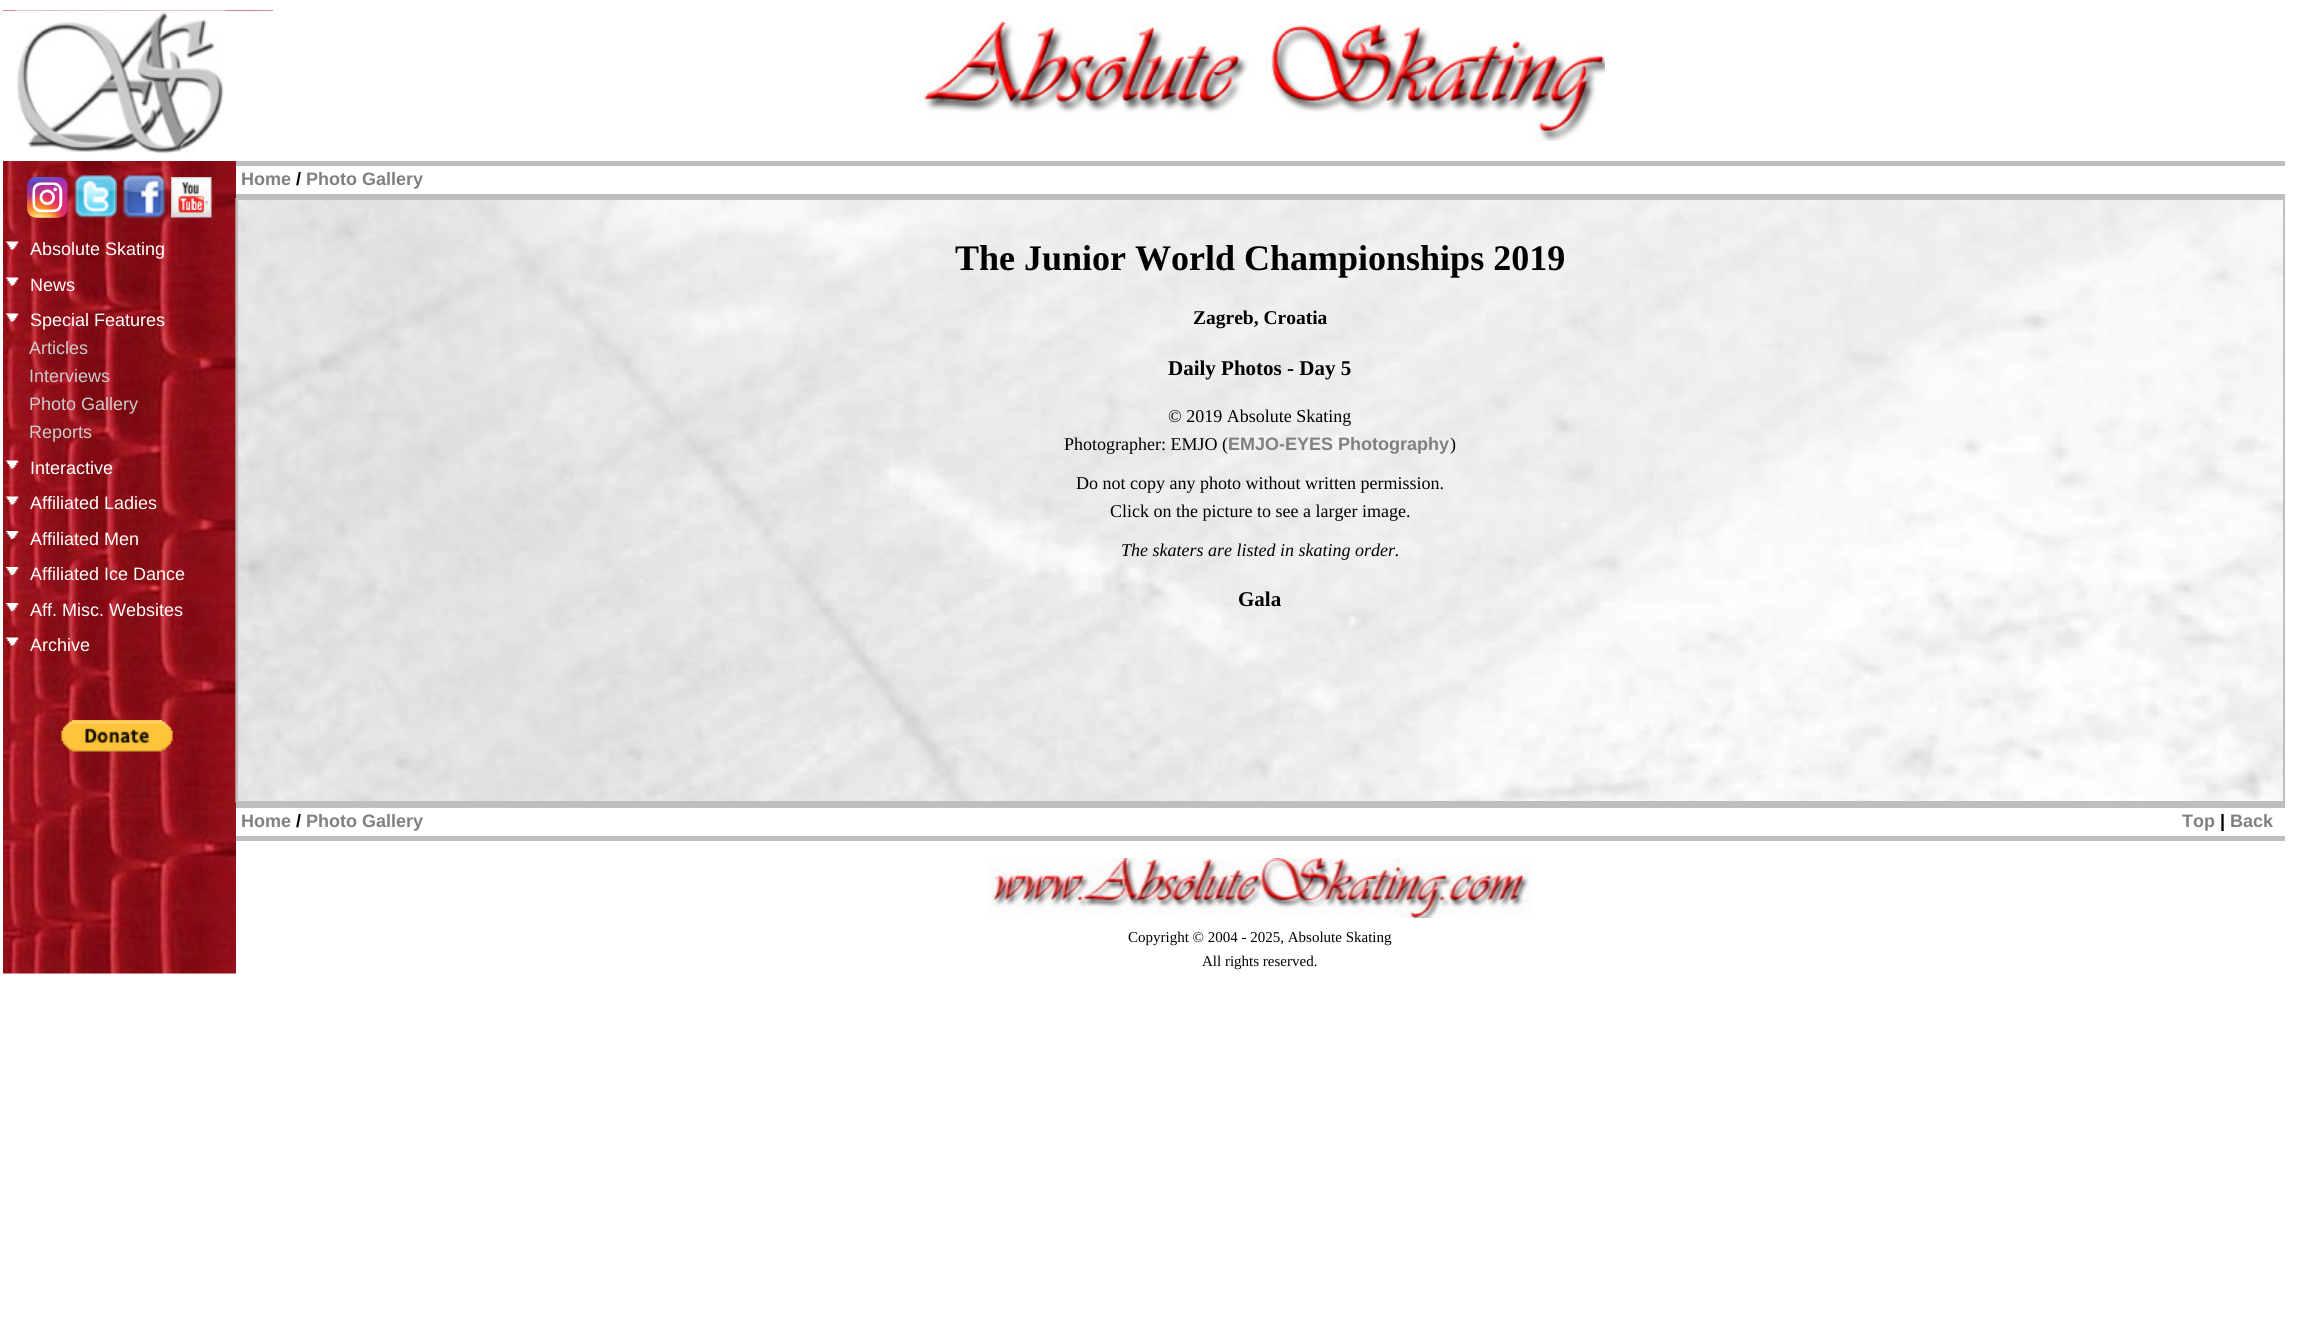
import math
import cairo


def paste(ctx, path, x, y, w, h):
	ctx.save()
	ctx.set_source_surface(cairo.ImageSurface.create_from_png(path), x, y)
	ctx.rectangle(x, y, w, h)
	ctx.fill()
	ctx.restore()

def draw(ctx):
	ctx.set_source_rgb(1, 1, 1)
	ctx.paint()
	paste(ctx, 'media/1.png', 3, 10, 270, 964)
	ctx.set_source_rgb(1, 1, 1)
	ctx.rectangle(3, 11, 233, 150)
	ctx.fill()
	paste(ctx, 'media/2.png', 15, 10, 210, 143)
	paste(ctx, 'media/3.png', 27, 177, 41, 41)
	paste(ctx, 'media/4.png', 74, 175, 43, 43)
	paste(ctx, 'media/5.png', 122, 175, 44, 44)
	paste(ctx, 'media/6.png', 171, 177, 41, 41)
	paste(ctx, 'media/7.png', 6, 241, 13, 9)
	ctx.select_font_face('Liberation Sans')
	ctx.set_font_size(18)
	ctx.move_to(30, 255)
	ctx.show_text('Absolute Skating')
	paste(ctx, 'media/8.png', 6, 277, 13, 9)
	ctx.move_to(30, 291)
	ctx.show_text('News')
	paste(ctx, 'media/9.png', 6, 313, 13, 9)
	ctx.move_to(30, 326)
	ctx.show_text('Special Features')
	ctx.set_source_rgb(0.8, 0.8, 0.8)
	for x, y, s in [
		(29, 354, 'Articles'),
		(29, 382, 'Interviews'),
		(29, 410, 'Photo Gallery'),
		(29, 438, 'Reports'),
	]:
		ctx.move_to(x, y)
		ctx.show_text(s)
	paste(ctx, 'media/10.png', 6, 460, 13, 9)
	ctx.set_source_rgb(1, 1, 1)
	ctx.move_to(30, 474)
	ctx.show_text('Interactive')
	paste(ctx, 'media/11.png', 6, 496, 13, 9)
	ctx.move_to(30, 509)
	ctx.show_text('Affiliated Ladies')
	paste(ctx, 'media/12.png', 6, 531, 13, 8)
	ctx.move_to(30, 545)
	ctx.show_text('Affiliated Men')
	paste(ctx, 'media/13.png', 6, 567, 13, 8)
	ctx.move_to(30, 580)
	ctx.show_text('Affiliated Ice Dance')
	paste(ctx, 'media/14.png', 6, 603, 13, 8)
	ctx.move_to(30, 616)
	ctx.show_text('Aff. Misc. Websites')
	paste(ctx, 'media/15.png', 6, 637, 13, 9)
	ctx.move_to(30, 651)
	ctx.show_text('Archive')
	paste(ctx, 'media/16.png', 61, 720, 112, 32)
	ctx.rectangle(236, 11, 37, 963)
	ctx.fill()
	paste(ctx, 'media/17.png', 917, 19, 688, 122)
	ctx.set_source_rgb(0.745, 0.745, 0.745)
	ctx.rectangle(236, 161, 2049, 5)
	ctx.fill()
	ctx.rectangle(236, 194, 2049, 4)
	ctx.fill()
	ctx.select_font_face('Liberation Sans', cairo.FONT_SLANT_NORMAL, cairo.FONT_WEIGHT_BOLD)
	ctx.set_source_rgb(0.502, 0.502, 0.502)
	ctx.move_to(241, 185)
	ctx.show_text('Home')
	ctx.set_source_rgb(0, 0, 0)
	ctx.move_to(296, 185)
	ctx.show_text('/')
	ctx.set_source_rgb(0.502, 0.502, 0.502)
	ctx.move_to(306, 185)
	ctx.show_text('Photo Gallery')
	paste(ctx, 'media/18.png', 235, 198, 2048, 605)
	ctx.rectangle(237, 199, 2047, 603)
	ctx.set_source_rgb(0.745, 0.745, 0.745)
	ctx.stroke()
	ctx.select_font_face('Liberation Serif', cairo.FONT_SLANT_NORMAL, cairo.FONT_WEIGHT_BOLD)
	ctx.set_font_size(36)
	ctx.set_source_rgb(0, 0, 0)
	ctx.move_to(955, 270)
	ctx.show_text('The Junior World Championships 2019')
	ctx.set_font_size(19.5)
	ctx.move_to(1193, 324)
	ctx.show_text('Zagreb, Croatia')
	ctx.set_font_size(21)
	ctx.move_to(1168, 375)
	ctx.show_text('Daily Photos - Day 5')
	ctx.select_font_face('Liberation Serif')
	ctx.set_font_size(18)
	ctx.move_to(1168, 422)
	ctx.show_text('© 2019 Absolute Skating')
	ctx.move_to(1064, 450)
	ctx.show_text('Photographer: EMJO (')
	ctx.select_font_face('Liberation Sans', cairo.FONT_SLANT_NORMAL, cairo.FONT_WEIGHT_BOLD)
	ctx.set_source_rgb(0.502, 0.502, 0.502)
	ctx.move_to(1228, 450)
	ctx.show_text('EMJO-EYES Photography')
	ctx.select_font_face('Liberation Serif')
	ctx.set_source_rgb(0, 0, 0)
	for x, y, s in [
		(1450, 450, ')'),
		(1076, 489, 'Do not copy any photo without written permission.'),
		(1110, 517, 'Click on the picture to see a larger image.'),
	]:
		ctx.move_to(x, y)
		ctx.show_text(s)
	ctx.select_font_face('Liberation Serif', cairo.FONT_SLANT_ITALIC)
	ctx.move_to(1121, 556)
	ctx.show_text('The skaters are listed in skating order.')
	ctx.select_font_face('Liberation Serif', cairo.FONT_SLANT_NORMAL, cairo.FONT_WEIGHT_BOLD)
	ctx.set_font_size(21)
	ctx.move_to(1238, 606)
	ctx.show_text('Gala')
	ctx.set_source_rgb(0.745, 0.745, 0.745)
	ctx.rectangle(236, 803, 2049, 5)
	ctx.fill()
	ctx.rectangle(236, 836, 2049, 5)
	ctx.fill()
	ctx.select_font_face('Liberation Sans', cairo.FONT_SLANT_NORMAL, cairo.FONT_WEIGHT_BOLD)
	ctx.set_font_size(18)
	ctx.set_source_rgb(0.502, 0.502, 0.502)
	ctx.move_to(241, 827)
	ctx.show_text('Home')
	ctx.set_source_rgb(0, 0, 0)
	ctx.move_to(296, 827)
	ctx.show_text('/')
	ctx.set_source_rgb(0.502, 0.502, 0.502)
	ctx.move_to(306, 827)
	ctx.show_text('Photo Gallery')
	ctx.move_to(2182, 827)
	ctx.show_text('Top')
	ctx.set_source_rgb(0, 0, 0)
	ctx.move_to(2220, 827)
	ctx.show_text('|')
	ctx.set_source_rgb(0.502, 0.502, 0.502)
	ctx.move_to(2230, 827)
	ctx.show_text('Back')
	paste(ctx, 'media/19.png', 988, 858, 544, 60)
	ctx.select_font_face('Liberation Serif')
	ctx.set_font_size(15)
	ctx.set_source_rgb(0, 0, 0)
	ctx.move_to(1128, 942)
	ctx.show_text('Copyright © 2004 - 2025, Absolute Skating')
	ctx.move_to(1202, 966)
	ctx.show_text('All rights reserved.')


surface = cairo.ImageSurface(cairo.FORMAT_RGB24, 2305, 1318)
ctx = cairo.Context(surface)
options = cairo.FontOptions()
options.set_hint_metrics(cairo.HINT_METRICS_OFF)
options.set_hint_style(cairo.HINT_STYLE_NONE)
ctx.set_font_options(options)
ctx.set_miter_limit(4)
draw(ctx)
surface.write_to_png('image.png')
